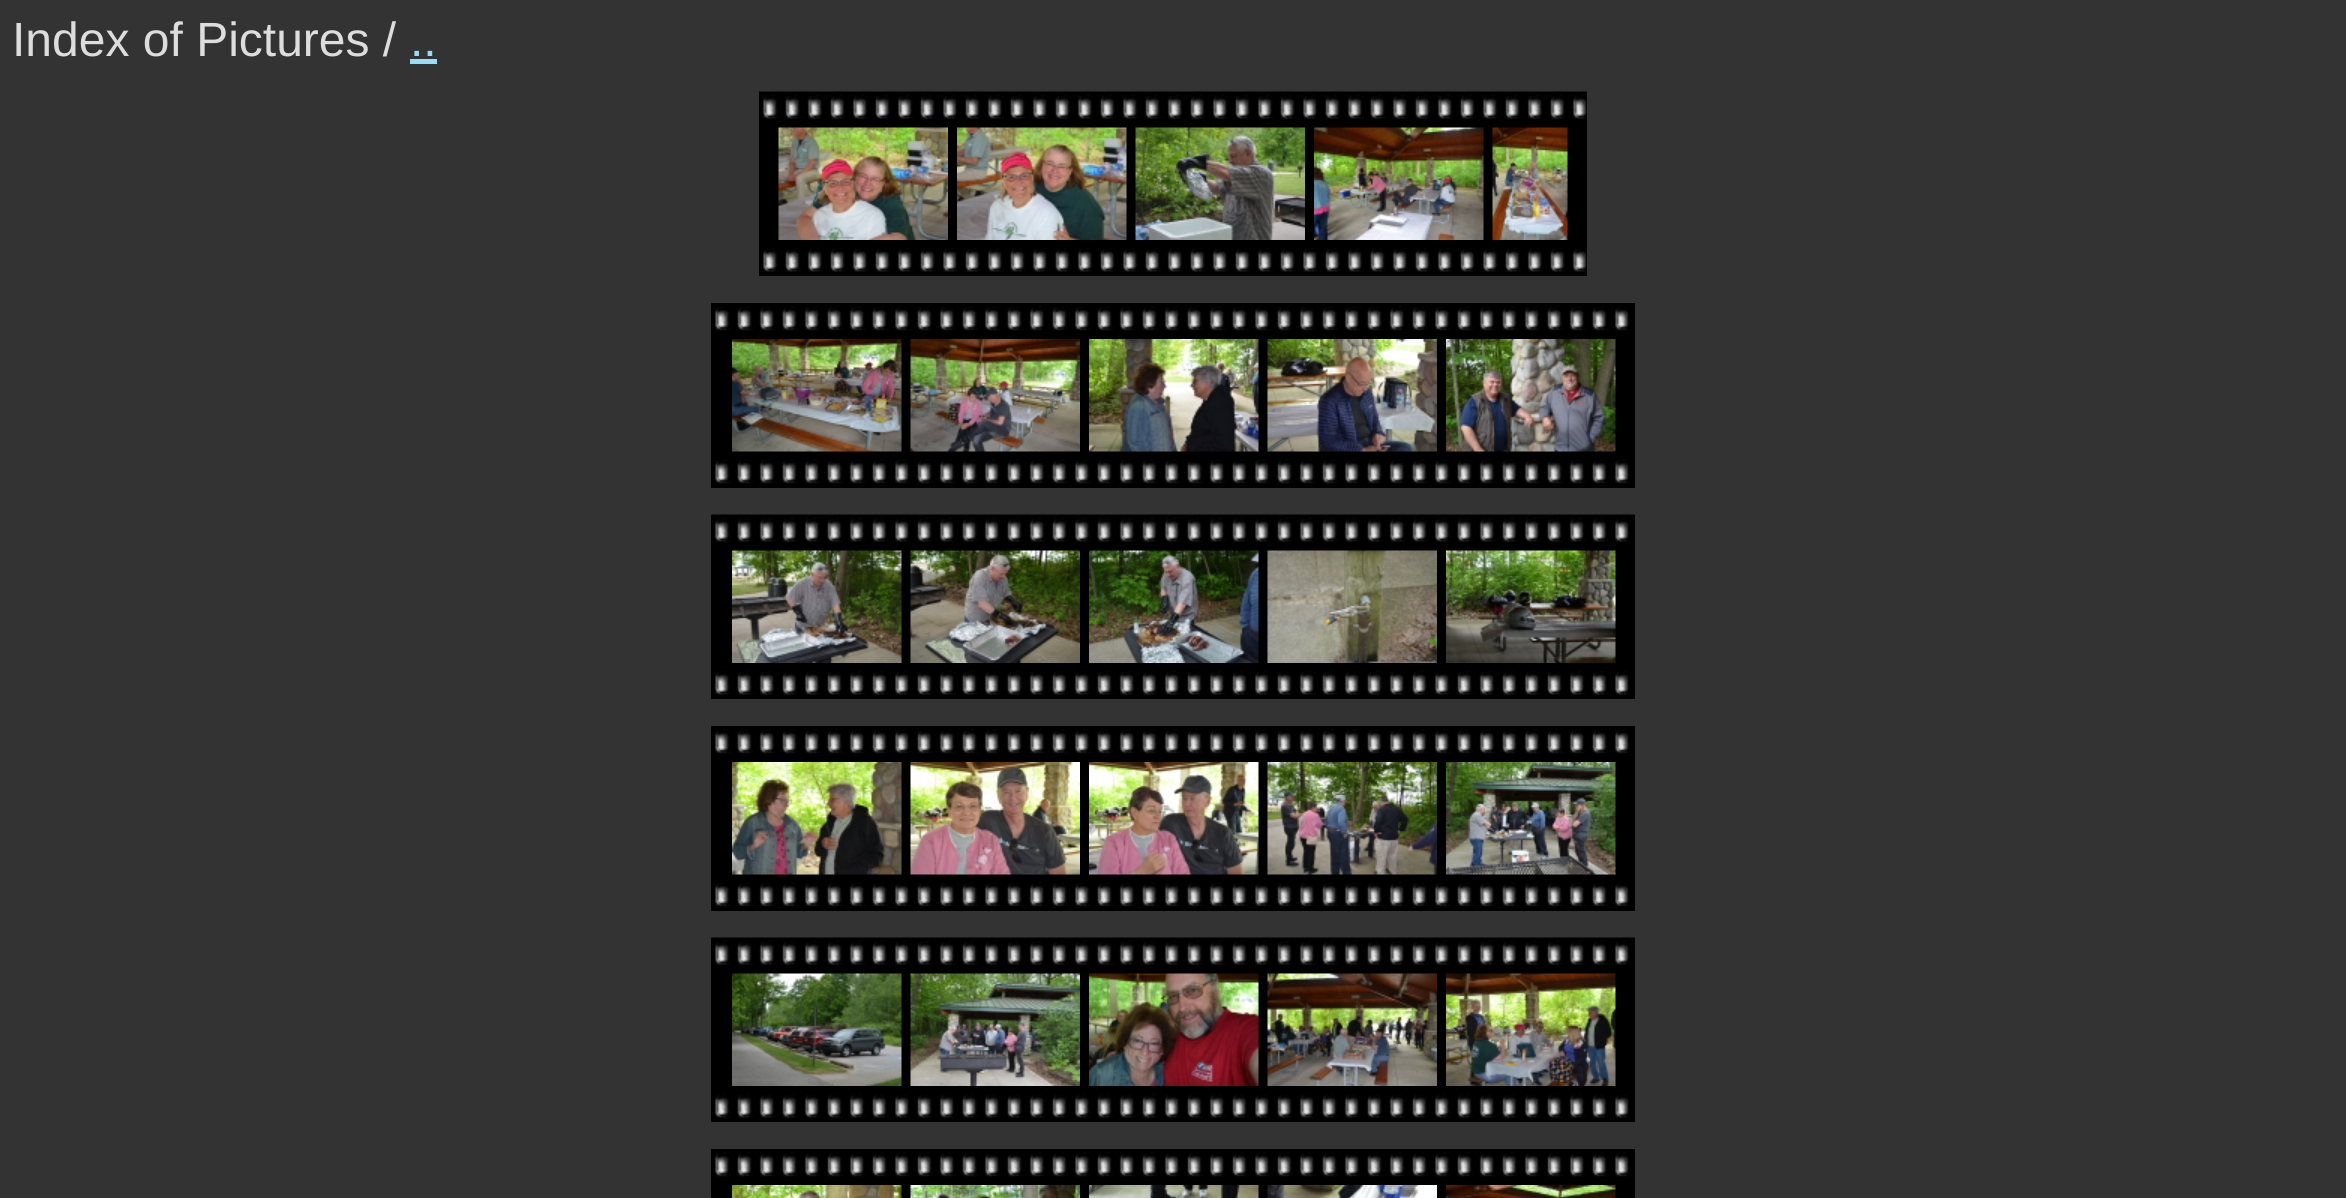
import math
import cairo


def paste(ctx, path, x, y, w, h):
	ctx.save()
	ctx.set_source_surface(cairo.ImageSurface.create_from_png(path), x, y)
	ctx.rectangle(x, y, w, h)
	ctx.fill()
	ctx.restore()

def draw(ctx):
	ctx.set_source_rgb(0.2, 0.2, 0.2)
	ctx.paint()
	ctx.select_font_face('Liberation Sans')
	ctx.set_font_size(48)
	ctx.set_source_rgb(0.867, 0.867, 0.867)
	ctx.move_to(12, 56)
	ctx.show_text('Index of Pictures /')
	ctx.set_source_rgb(0.584, 0.867, 1)
	ctx.move_to(410, 56)
	ctx.show_text('..')
	ctx.rectangle(410, 59, 27, 5)
	ctx.fill()
	ctx.set_source_rgb(0, 0, 0)
	ctx.rectangle(759, 119, 828, 4)
	ctx.fill()
	paste(ctx, 'media/1.png', 759, 91, 828, 28)
	ctx.rectangle(759, 123, 828, 153)
	ctx.fill()
	paste(ctx, 'media/2.png', 778, 127, 170, 113)
	paste(ctx, 'media/3.png', 957, 127, 170, 113)
	paste(ctx, 'media/4.png', 1135, 127, 170, 113)
	paste(ctx, 'media/5.png', 1314, 127, 170, 113)
	paste(ctx, 'media/6.png', 1492, 127, 76, 113)
	paste(ctx, 'media/7.png', 762, 248, 825, 24)
	ctx.rectangle(711, 303, 924, 32)
	ctx.fill()
	paste(ctx, 'media/8.png', 714, 306, 916, 25)
	ctx.rectangle(711, 335, 924, 153)
	ctx.fill()
	paste(ctx, 'media/9.png', 732, 339, 170, 113)
	paste(ctx, 'media/10.png', 910, 339, 170, 113)
	paste(ctx, 'media/11.png', 1089, 339, 170, 113)
	paste(ctx, 'media/12.png', 1267, 339, 170, 113)
	paste(ctx, 'media/13.png', 1446, 339, 170, 113)
	paste(ctx, 'media/14.png', 714, 459, 916, 25)
	ctx.rectangle(711, 542, 924, 4)
	ctx.fill()
	paste(ctx, 'media/15.png', 711, 514, 924, 28)
	ctx.rectangle(711, 546, 924, 153)
	ctx.fill()
	paste(ctx, 'media/16.png', 732, 550, 170, 113)
	paste(ctx, 'media/17.png', 910, 550, 170, 113)
	paste(ctx, 'media/18.png', 1089, 550, 170, 113)
	paste(ctx, 'media/19.png', 1267, 550, 170, 113)
	paste(ctx, 'media/20.png', 1446, 550, 170, 113)
	paste(ctx, 'media/21.png', 714, 671, 916, 24)
	ctx.rectangle(711, 726, 924, 32)
	ctx.fill()
	paste(ctx, 'media/22.png', 714, 729, 916, 25)
	ctx.rectangle(711, 758, 924, 153)
	ctx.fill()
	paste(ctx, 'media/23.png', 732, 762, 170, 113)
	paste(ctx, 'media/24.png', 910, 762, 170, 113)
	paste(ctx, 'media/25.png', 1089, 762, 170, 113)
	paste(ctx, 'media/26.png', 1267, 762, 170, 113)
	paste(ctx, 'media/27.png', 1446, 762, 170, 113)
	paste(ctx, 'media/28.png', 714, 882, 916, 25)
	ctx.rectangle(711, 965, 924, 4)
	ctx.fill()
	paste(ctx, 'media/29.png', 711, 937, 924, 28)
	ctx.rectangle(711, 969, 924, 153)
	ctx.fill()
	paste(ctx, 'media/30.png', 732, 973, 170, 113)
	paste(ctx, 'media/31.png', 910, 973, 170, 113)
	paste(ctx, 'media/32.png', 1089, 973, 170, 113)
	paste(ctx, 'media/33.png', 1267, 973, 170, 113)
	paste(ctx, 'media/34.png', 1446, 973, 170, 113)
	paste(ctx, 'media/35.png', 714, 1094, 916, 24)
	ctx.rectangle(711, 1149, 924, 32)
	ctx.fill()
	paste(ctx, 'media/36.png', 714, 1152, 916, 25)
	ctx.rectangle(711, 1181, 924, 17)
	ctx.fill()
	paste(ctx, 'media/37.png', 732, 1185, 170, 13)
	paste(ctx, 'media/38.png', 910, 1185, 170, 13)
	paste(ctx, 'media/39.png', 1089, 1185, 170, 13)
	paste(ctx, 'media/40.png', 1267, 1185, 170, 13)
	paste(ctx, 'media/41.png', 1446, 1185, 170, 13)


surface = cairo.ImageSurface(cairo.FORMAT_RGB24, 2346, 1198)
ctx = cairo.Context(surface)
options = cairo.FontOptions()
options.set_hint_metrics(cairo.HINT_METRICS_OFF)
options.set_hint_style(cairo.HINT_STYLE_NONE)
ctx.set_font_options(options)
ctx.set_miter_limit(4)
draw(ctx)
surface.write_to_png('image.png')
